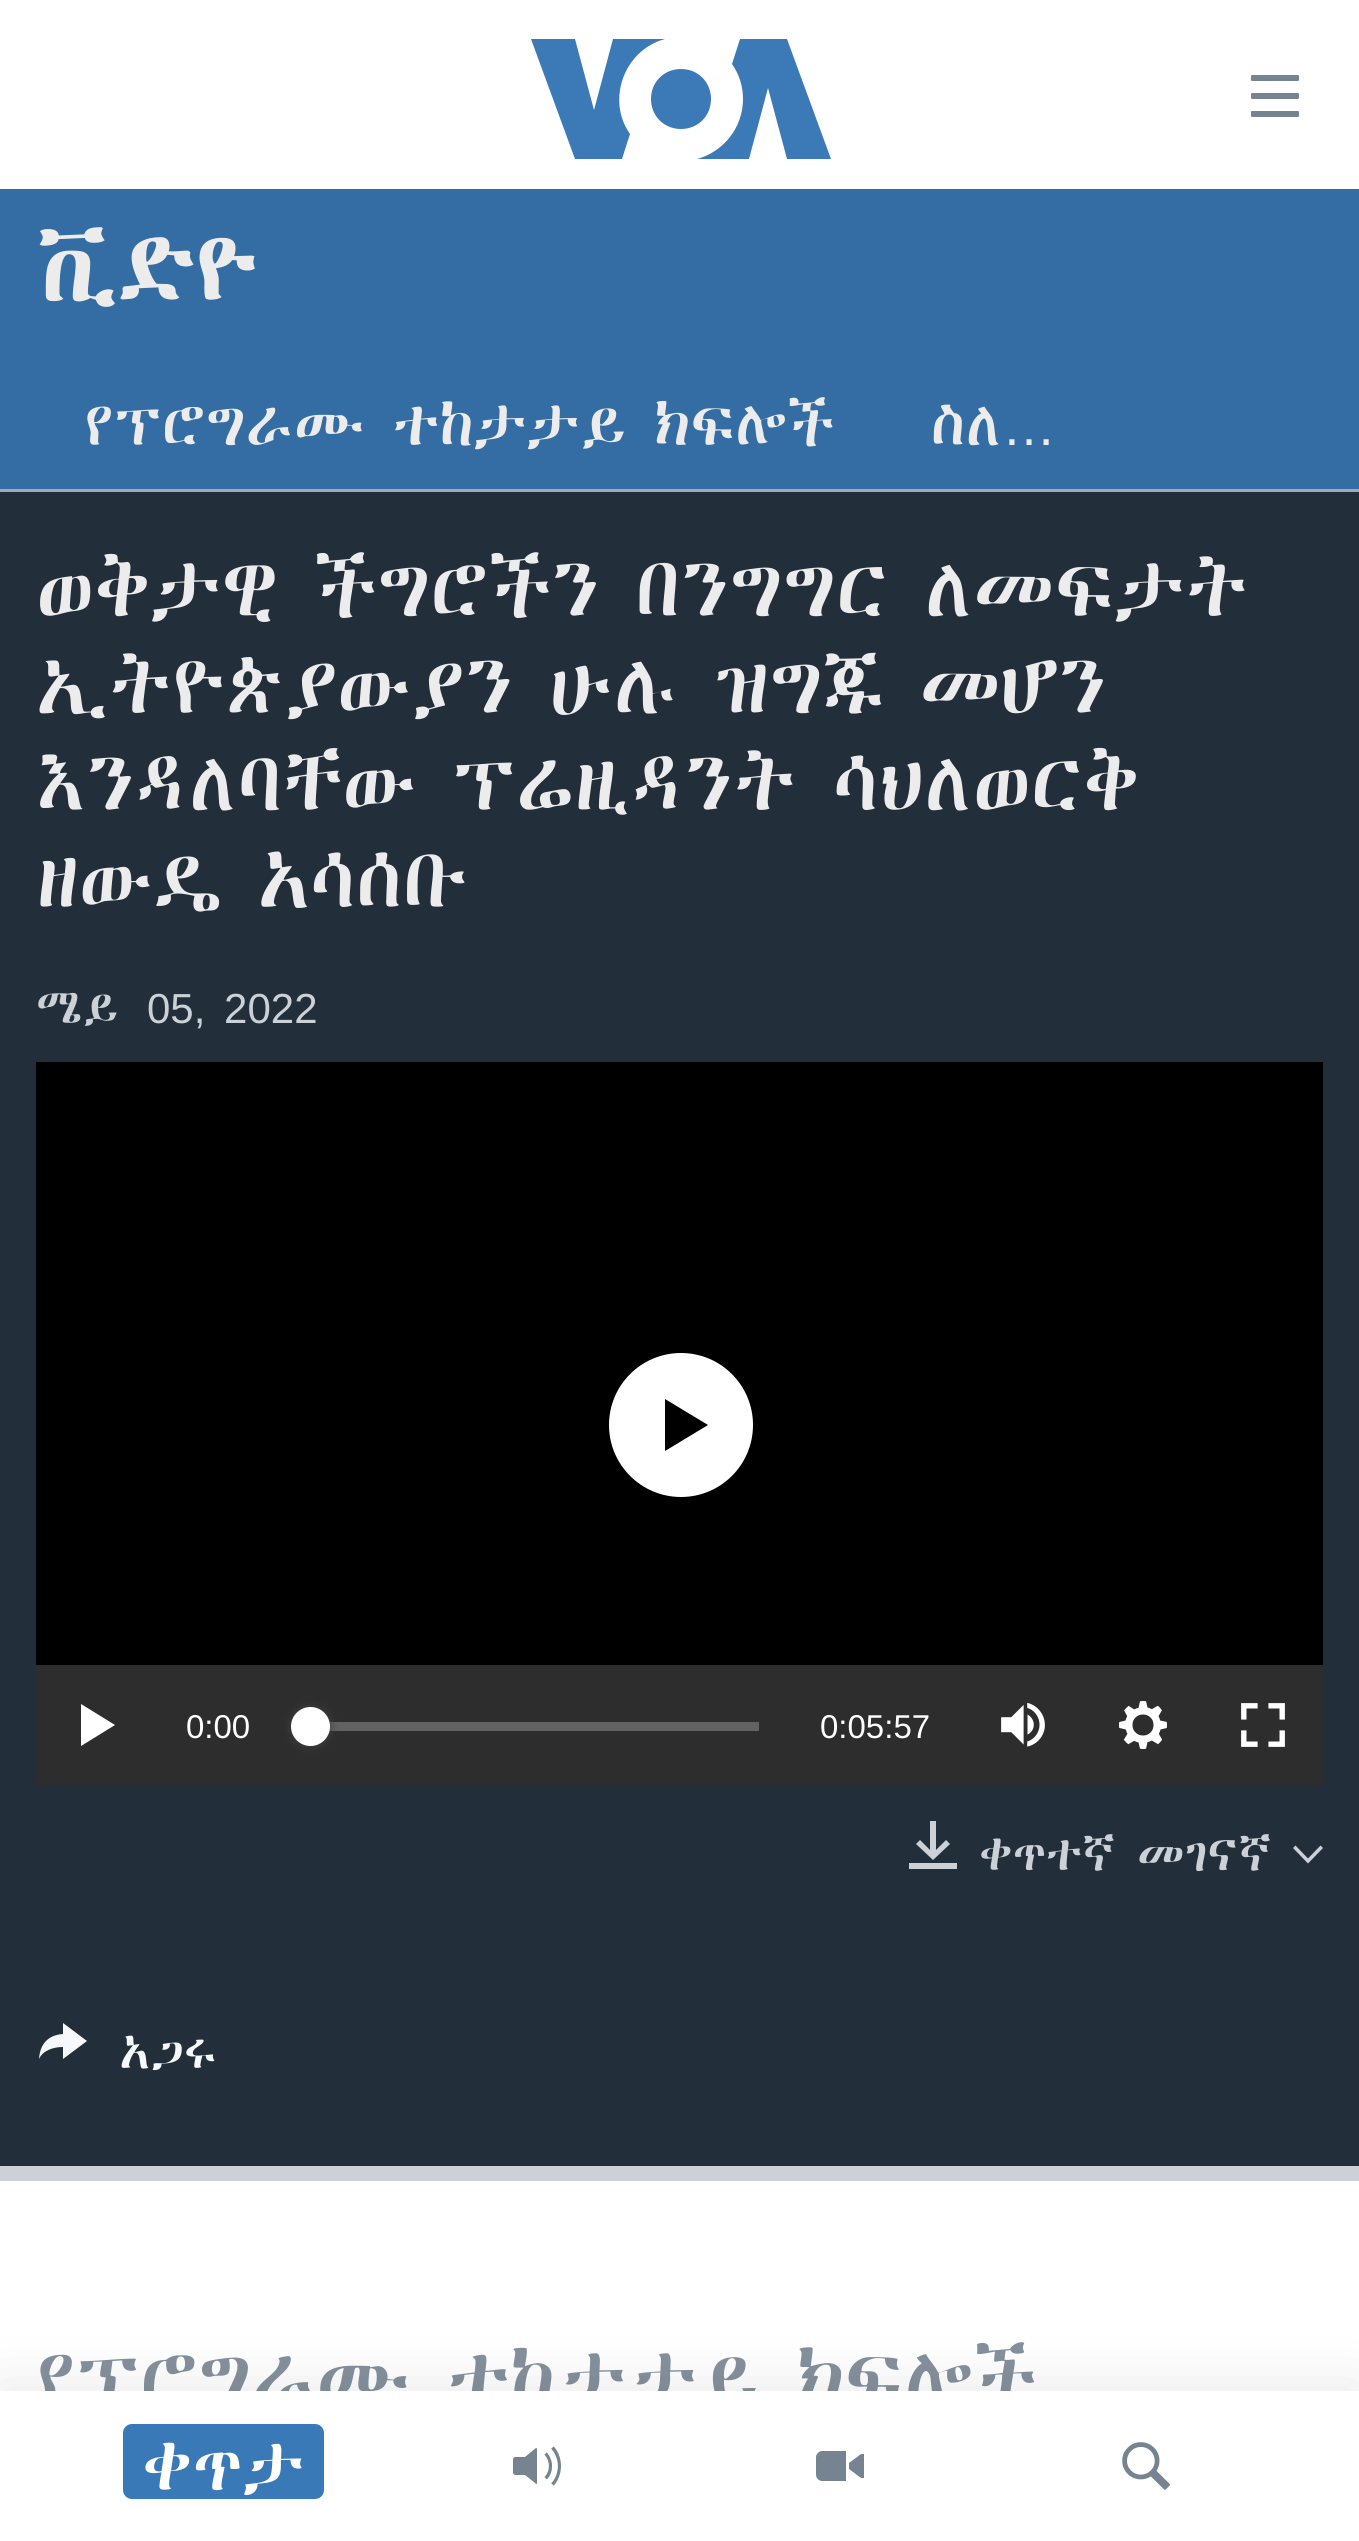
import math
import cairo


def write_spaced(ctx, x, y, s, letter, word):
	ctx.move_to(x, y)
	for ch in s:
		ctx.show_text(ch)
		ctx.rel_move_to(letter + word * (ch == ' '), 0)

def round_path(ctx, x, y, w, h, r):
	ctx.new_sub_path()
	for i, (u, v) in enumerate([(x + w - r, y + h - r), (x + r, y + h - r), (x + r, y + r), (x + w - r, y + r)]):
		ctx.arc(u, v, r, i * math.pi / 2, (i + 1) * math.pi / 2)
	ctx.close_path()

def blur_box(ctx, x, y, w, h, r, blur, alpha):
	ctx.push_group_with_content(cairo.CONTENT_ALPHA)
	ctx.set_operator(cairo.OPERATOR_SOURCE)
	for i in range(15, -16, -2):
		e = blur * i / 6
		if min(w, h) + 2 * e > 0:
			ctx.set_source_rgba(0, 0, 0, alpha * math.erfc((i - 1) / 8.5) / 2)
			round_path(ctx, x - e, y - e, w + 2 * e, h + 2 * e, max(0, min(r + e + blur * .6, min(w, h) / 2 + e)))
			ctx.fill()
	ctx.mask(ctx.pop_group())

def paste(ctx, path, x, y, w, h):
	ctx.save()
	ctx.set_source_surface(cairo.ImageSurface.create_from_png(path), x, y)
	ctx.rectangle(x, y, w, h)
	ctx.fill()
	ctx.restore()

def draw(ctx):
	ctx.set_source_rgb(1, 1, 1)
	ctx.paint()
	ctx.set_source_rgb(0.204, 0.424, 0.643)
	ctx.rectangle(0, 189, 1359, 300)
	ctx.fill()
	ctx.select_font_face('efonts', cairo.FONT_SLANT_NORMAL, cairo.FONT_WEIGHT_BOLD)
	ctx.set_font_size(83)
	ctx.set_source_rgb(0.922, 0.922, 0.922)
	ctx.move_to(36, 300)
	ctx.show_text('ቪድዮ')
	ctx.select_font_face('efonts')
	ctx.set_font_size(54)
	ctx.move_to(84, 445)
	ctx.show_text('የፕሮግራሙ ተከታታይ ክፍሎች')
	ctx.move_to(931, 445)
	ctx.show_text('ስለ')
	ctx.select_font_face('Liberation Sans')
	ctx.move_to(1002, 445)
	ctx.show_text('…')
	ctx.set_source_rgb(0.133, 0.184, 0.227)
	ctx.rectangle(0, 492, 1359, 1674)
	ctx.fill()
	ctx.set_source_rgb(0.631, 0.667, 0.706)
	ctx.rectangle(0, 489, 1359, 3)
	ctx.fill()
	ctx.set_source_rgb(0.796, 0.82, 0.839)
	ctx.rectangle(0, 2166, 1359, 15)
	ctx.fill()
	ctx.select_font_face('efonts')
	ctx.set_font_size(72)
	ctx.set_source_rgb(0.922, 0.922, 0.922)
	for x, y, s in [
		(36, 616, 'ወቅታዊ ችግሮችን በንግግር ለመፍታት'),
		(36, 713, 'ኢትዮጵያውያን ሁሉ ዝግጁ መሆን'),
		(36, 810, 'እንዳለባቸው ፕሬዚዳንት ሳህለወርቅ'),
		(36, 907, 'ዘውዴ አሳሰቡ'),
	]:
		ctx.move_to(x, y)
		ctx.show_text(s)
	ctx.set_font_size(42)
	ctx.set_source_rgb(0.796, 0.82, 0.839)
	ctx.move_to(36, 1023)
	ctx.show_text('ሜይ')
	ctx.select_font_face('Liberation Sans')
	write_spaced(ctx, 147, 1023, '05, 2022', 0, 7)
	ctx.set_source_rgb(0, 0, 0)
	ctx.rectangle(36, 1062, 1287, 603)
	ctx.fill()
	ctx.set_source_rgb(1, 1, 1)
	ctx.arc(681, 1425, 72, 0, 2 * math.pi)
	ctx.fill()
	ctx.set_source_rgb(0, 0, 0)
	ctx.new_path()
	ctx.move_to(665, 1451)
	ctx.line_to(708, 1425)
	ctx.line_to(665, 1399)
	ctx.close_path()
	ctx.fill()
	ctx.set_source_rgb(0.176, 0.176, 0.176)
	ctx.rectangle(36, 1665, 1287, 120)
	ctx.fill()
	ctx.set_source_rgb(1, 1, 1)
	ctx.new_path()
	ctx.move_to(81, 1746)
	ctx.line_to(115, 1725)
	ctx.line_to(81, 1704)
	ctx.close_path()
	ctx.fill()
	ctx.set_font_size(33)
	ctx.move_to(186, 1738)
	ctx.show_text('0:00')
	ctx.set_source_rgb(0.384, 0.384, 0.384)
	ctx.rectangle(329, 1722, 430, 9)
	ctx.fill()
	ctx.set_source_rgb(0.255, 0.255, 0.267)
	blur_box(ctx, 291, 1707, 39, 39, 19.5, 4.5, 1)
	ctx.set_source_rgb(1, 1, 1)
	ctx.arc(310.5, 1726.5, 19.5, 0, 2 * math.pi)
	ctx.fill()
	ctx.move_to(820, 1738)
	ctx.show_text('0:05:57')
	paste(ctx, 'media/1.png', 1001, 1702, 44, 45)
	paste(ctx, 'media/2.png', 1119, 1701, 48, 48)
	paste(ctx, 'media/3.png', 1241, 1703, 44, 44)
	ctx.set_source_rgb(0.796, 0.82, 0.839)
	ctx.new_path()
	ctx.move_to(957, 1863)
	ctx.line_to(957, 1869)
	ctx.line_to(909, 1869)
	ctx.line_to(909, 1863)
	ctx.close_path()
	ctx.move_to(950, 1844)
	ctx.line_to(946, 1840)
	ctx.line_to(936, 1850)
	ctx.line_to(936, 1821)
	ctx.line_to(930, 1821)
	ctx.line_to(930, 1850)
	ctx.line_to(920, 1840)
	ctx.line_to(916, 1844)
	ctx.line_to(933, 1860)
	ctx.close_path()
	ctx.fill()
	ctx.select_font_face('efonts')
	ctx.set_font_size(42)
	ctx.move_to(979, 1870)
	ctx.show_text('ቀጥተኛ መገናኛ')
	ctx.new_path()
	ctx.move_to(1293, 1848)
	ctx.line_to(1308, 1863.5)
	ctx.line_to(1323, 1848)
	ctx.line_to(1320.5, 1845.5)
	ctx.line_to(1308, 1858.5)
	ctx.line_to(1295.5, 1845.5)
	ctx.close_path()
	ctx.fill()
	ctx.set_source_rgb(0.965, 0.969, 0.973)
	ctx.new_path()
	ctx.move_to(39, 2059)
	ctx.curve_to(40, 2044, 48, 2035, 63, 2034)
	ctx.line_to(63, 2023)
	ctx.line_to(87, 2041)
	ctx.line_to(63, 2059)
	ctx.line_to(63, 2047)
	ctx.curve_to(54, 2047, 43, 2050, 39, 2059)
	ctx.close_path()
	ctx.fill()
	ctx.move_to(120, 2068)
	ctx.show_text('አጋሩ')
	ctx.set_font_size(72)
	ctx.set_source_rgb(0.518, 0.569, 0.616)
	ctx.move_to(36, 2406)
	ctx.show_text('የፕሮግራሙ ተከታታይ ክፍሎች')
	ctx.set_source_rgb(0.231, 0.475, 0.718)
	ctx.new_path()
	ctx.move_to(630, 134)
	ctx.line_to(622, 159)
	ctx.line_to(575, 159)
	ctx.line_to(531, 39)
	ctx.line_to(575, 39)
	ctx.line_to(594, 110)
	ctx.line_to(613, 39)
	ctx.line_to(665, 39)
	ctx.curve_to(624, 50, 606, 100, 630, 134)
	ctx.close_path()
	ctx.move_to(681, 69)
	ctx.curve_to(664, 69, 651, 82, 651, 99)
	ctx.curve_to(651, 116, 664, 129, 681, 129)
	ctx.curve_to(698, 129, 711, 116, 711, 99)
	ctx.curve_to(711, 82, 698, 69, 681, 69)
	ctx.close_path()
	ctx.move_to(743, 99)
	ctx.curve_to(743, 128, 723, 152, 697, 159)
	ctx.line_to(749, 159)
	ctx.line_to(768, 88)
	ctx.line_to(787, 159)
	ctx.line_to(831, 159)
	ctx.line_to(787, 39)
	ctx.line_to(740, 39)
	ctx.line_to(732, 64)
	ctx.curve_to(739, 74, 743, 86, 743, 99)
	ctx.close_path()
	ctx.fill()
	paste(ctx, 'media/4.png', 1251, 75, 48, 42)
	ctx.set_source_rgb(0, 0, 0)
	blur_box(ctx, 0, 2391, 1359, 150, 0, 30, 0.1)
	ctx.set_source_rgb(1, 1, 1)
	ctx.rectangle(0, 2391, 1359, 150)
	ctx.fill()
	ctx.set_source_rgb(0.227, 0.475, 0.718)
	round_path(ctx, 123, 2424, 201, 75, 9)
	ctx.fill()
	ctx.set_font_size(63)
	ctx.set_source_rgb(1, 1, 1)
	ctx.move_to(142, 2490)
	ctx.show_text('ቀጥታ')
	paste(ctx, 'media/5.png', 513, 2446, 48, 40)
	paste(ctx, 'media/6.png', 816, 2451, 48, 30)
	paste(ctx, 'media/7.png', 1122, 2442, 48, 48)


surface = cairo.ImageSurface(cairo.FORMAT_RGB24, 1359, 2541)
ctx = cairo.Context(surface)
options = cairo.FontOptions()
options.set_hint_metrics(cairo.HINT_METRICS_OFF)
options.set_hint_style(cairo.HINT_STYLE_NONE)
ctx.set_font_options(options)
ctx.set_miter_limit(4)
draw(ctx)
surface.write_to_png('image.png')
